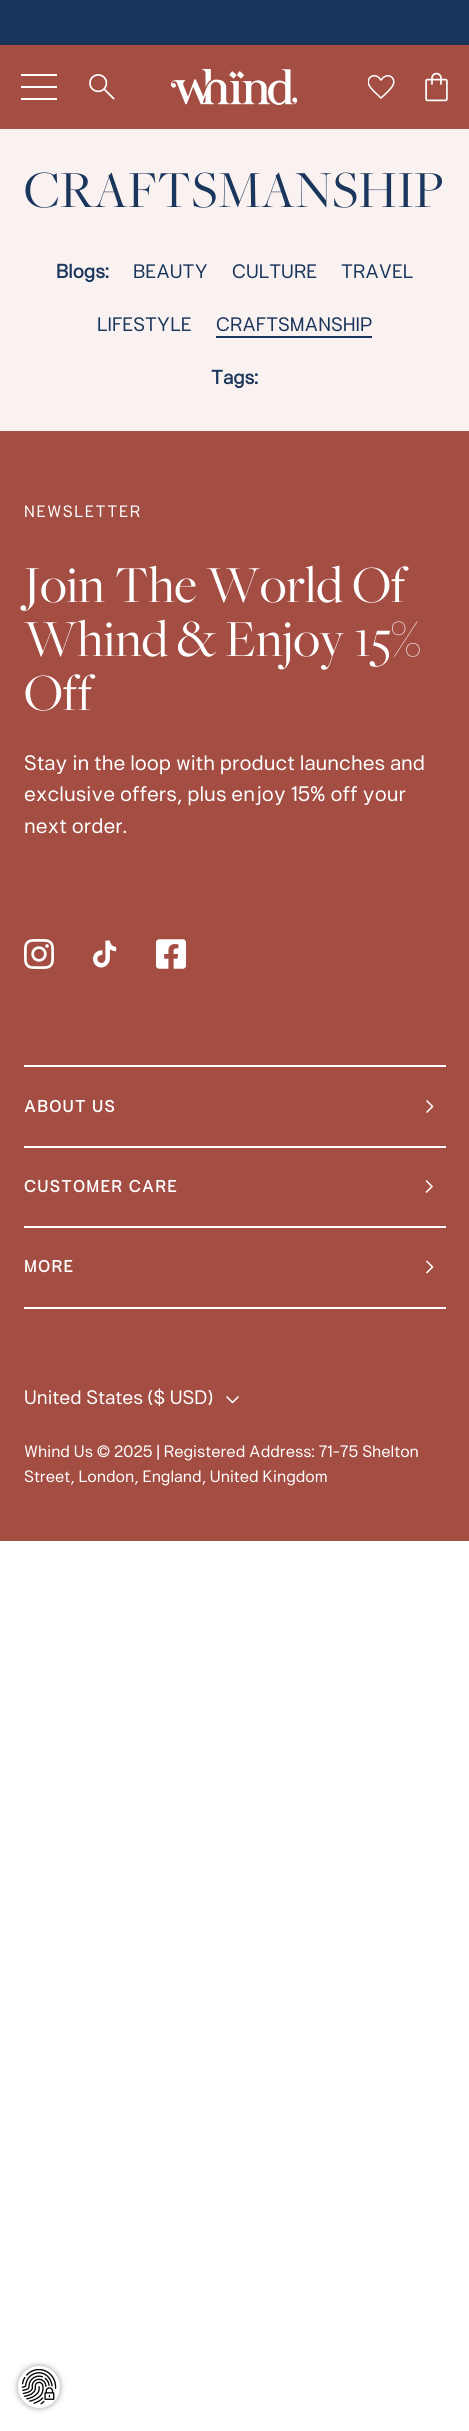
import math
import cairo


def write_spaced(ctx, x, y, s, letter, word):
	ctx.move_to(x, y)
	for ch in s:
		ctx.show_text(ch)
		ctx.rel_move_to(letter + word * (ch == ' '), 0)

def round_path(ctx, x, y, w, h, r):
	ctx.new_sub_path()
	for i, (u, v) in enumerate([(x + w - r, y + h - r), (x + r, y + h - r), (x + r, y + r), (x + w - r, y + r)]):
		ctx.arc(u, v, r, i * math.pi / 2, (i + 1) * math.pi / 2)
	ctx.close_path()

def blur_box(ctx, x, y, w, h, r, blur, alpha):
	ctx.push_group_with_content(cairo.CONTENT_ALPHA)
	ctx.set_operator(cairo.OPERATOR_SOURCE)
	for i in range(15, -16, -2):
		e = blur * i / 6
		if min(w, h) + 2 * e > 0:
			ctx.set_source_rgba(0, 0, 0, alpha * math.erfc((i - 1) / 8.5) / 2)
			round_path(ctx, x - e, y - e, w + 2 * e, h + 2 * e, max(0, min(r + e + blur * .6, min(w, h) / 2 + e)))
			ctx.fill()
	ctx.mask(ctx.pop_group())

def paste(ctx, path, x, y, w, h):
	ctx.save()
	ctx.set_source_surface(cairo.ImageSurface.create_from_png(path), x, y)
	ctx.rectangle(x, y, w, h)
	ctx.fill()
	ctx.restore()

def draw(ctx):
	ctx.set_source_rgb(1, 1, 1)
	ctx.paint()
	ctx.set_source_rgb(0.106, 0.212, 0.365)
	ctx.rectangle(0, 0, 469, 45)
	ctx.fill()
	ctx.set_source_rgb(0.639, 0.302, 0.263)
	ctx.rectangle(0, 45, 469, 84)
	ctx.fill()
	ctx.set_source_rgb(1, 1, 1)
	ctx.rectangle(21, 74, 36, 2)
	ctx.rectangle(21, 86, 36, 2)
	ctx.rectangle(21, 98, 36, 2)
	ctx.fill()
	paste(ctx, 'media/1.png', 89, 74, 26, 26)
	paste(ctx, 'media/2.png', 171, 69, 126, 36)
	paste(ctx, 'media/3.png', 368, 75, 27, 24)
	paste(ctx, 'media/4.png', 425, 72, 23, 30)
	ctx.set_source_rgb(0.976, 0.949, 0.941)
	ctx.rectangle(0, 129, 469, 302)
	ctx.fill()
	ctx.select_font_face('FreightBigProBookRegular')
	ctx.set_font_size(54)
	ctx.set_source_rgb(0.106, 0.212, 0.365)
	ctx.move_to(24, 207)
	ctx.show_text('CRAFTSMANSHIP')
	ctx.select_font_face('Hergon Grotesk', cairo.FONT_SLANT_NORMAL, cairo.FONT_WEIGHT_BOLD)
	ctx.set_font_size(19.5)
	ctx.move_to(56, 278)
	ctx.show_text('Blogs:')
	ctx.select_font_face('Hergon Grotesk')
	for x, y, s in [
		(133, 278, 'BEAUTY'),
		(232, 278, 'CULTURE'),
		(341, 278, 'TRAVEL'),
		(97, 331, 'LIFESTYLE'),
		(216, 331, 'CRAFTSMANSHIP'),
	]:
		ctx.move_to(x, y)
		ctx.show_text(s)
	ctx.rectangle(216, 336, 156, 2)
	ctx.fill()
	ctx.select_font_face('Hergon Grotesk', cairo.FONT_SLANT_NORMAL, cairo.FONT_WEIGHT_BOLD)
	ctx.move_to(211, 384)
	ctx.show_text('Tags:')
	ctx.set_source_rgb(0.639, 0.302, 0.263)
	ctx.rectangle(0, 431, 469, 1110)
	ctx.fill()
	ctx.select_font_face('Hergon Grotesk')
	ctx.set_font_size(16.5)
	ctx.set_source_rgb(1, 1, 1)
	write_spaced(ctx, 24, 517, 'NEWSLETTER', 1.6, 0)
	ctx.select_font_face('FreightBigProBookRegular')
	ctx.set_font_size(54)
	for x, y, s in [
		(24, 602, 'Join The World Of'),
		(24, 656, 'Whind & Enjoy 15%'),
		(24, 710, 'Off'),
	]:
		ctx.move_to(x, y)
		ctx.show_text(s)
	ctx.select_font_face('Hergon Grotesk')
	ctx.set_font_size(21)
	for x, y, s in [
		(24, 770, 'Stay in the loop with product launches and'),
		(24, 801, 'exclusive offers, plus enjoy 15% off your'),
		(24, 833, 'next order.'),
	]:
		ctx.move_to(x, y)
		ctx.show_text(s)
	paste(ctx, 'media/5.png', 24, 939, 30, 30)
	paste(ctx, 'media/6.png', 93, 940, 24, 28)
	paste(ctx, 'media/7.png', 156, 939, 30, 30)
	ctx.rectangle(24, 1065, 422, 2)
	ctx.fill()
	ctx.select_font_face('Hergon Grotesk', cairo.FONT_SLANT_NORMAL, cairo.FONT_WEIGHT_BOLD)
	ctx.set_font_size(16.5)
	write_spaced(ctx, 24, 1112, 'ABOUT US', 1.6, 0)
	ctx.new_path()
	ctx.move_to(426.5, 1112.5)
	ctx.line_to(432.5, 1106.5)
	ctx.line_to(426.5, 1100.5)
	ctx.set_line_width(1.5)
	ctx.stroke()
	ctx.rectangle(24, 1146, 422, 2)
	ctx.fill()
	write_spaced(ctx, 24, 1192, 'CUSTOMER CARE', 1.6, 0)
	ctx.new_path()
	ctx.move_to(426, 1192.5)
	ctx.line_to(432, 1186.5)
	ctx.line_to(426, 1180.5)
	ctx.stroke()
	ctx.rectangle(24, 1307, 422, 2)
	ctx.fill()
	ctx.rectangle(24, 1226, 422, 2)
	ctx.fill()
	write_spaced(ctx, 24, 1272, 'MORE', 1.6, 0)
	ctx.new_path()
	ctx.move_to(426.5, 1273)
	ctx.line_to(432.5, 1267)
	ctx.line_to(426.5, 1261)
	ctx.stroke()
	ctx.select_font_face('Hergon Grotesk')
	ctx.set_font_size(19.5)
	ctx.move_to(24, 1404)
	ctx.show_text('United States ($ USD)')
	ctx.new_path()
	ctx.move_to(226.5, 1396.5)
	ctx.line_to(232.5, 1402.5)
	ctx.line_to(238.5, 1396.5)
	ctx.stroke()
	ctx.set_font_size(16.5)
	ctx.move_to(24, 1457)
	ctx.show_text('Whind Us © 2025 | Registered Address: 71-75 Shelton')
	ctx.move_to(24, 1482)
	ctx.show_text('Street, London, England, United Kingdom')
	ctx.set_source_rgb(0, 0, 0)
	blur_box(ctx, 18, 2366, 42, 42, 21, 3, 0.4)
	ctx.set_source_rgb(1, 1, 1)
	ctx.arc(39, 2387, 21, 0, 2 * math.pi)
	ctx.fill()
	paste(ctx, 'media/8.png', 21, 2369, 36, 36)


surface = cairo.ImageSurface(cairo.FORMAT_RGB24, 469, 2431)
ctx = cairo.Context(surface)
options = cairo.FontOptions()
options.set_hint_metrics(cairo.HINT_METRICS_OFF)
options.set_hint_style(cairo.HINT_STYLE_NONE)
ctx.set_font_options(options)
ctx.set_miter_limit(4)
draw(ctx)
surface.write_to_png('image.png')
